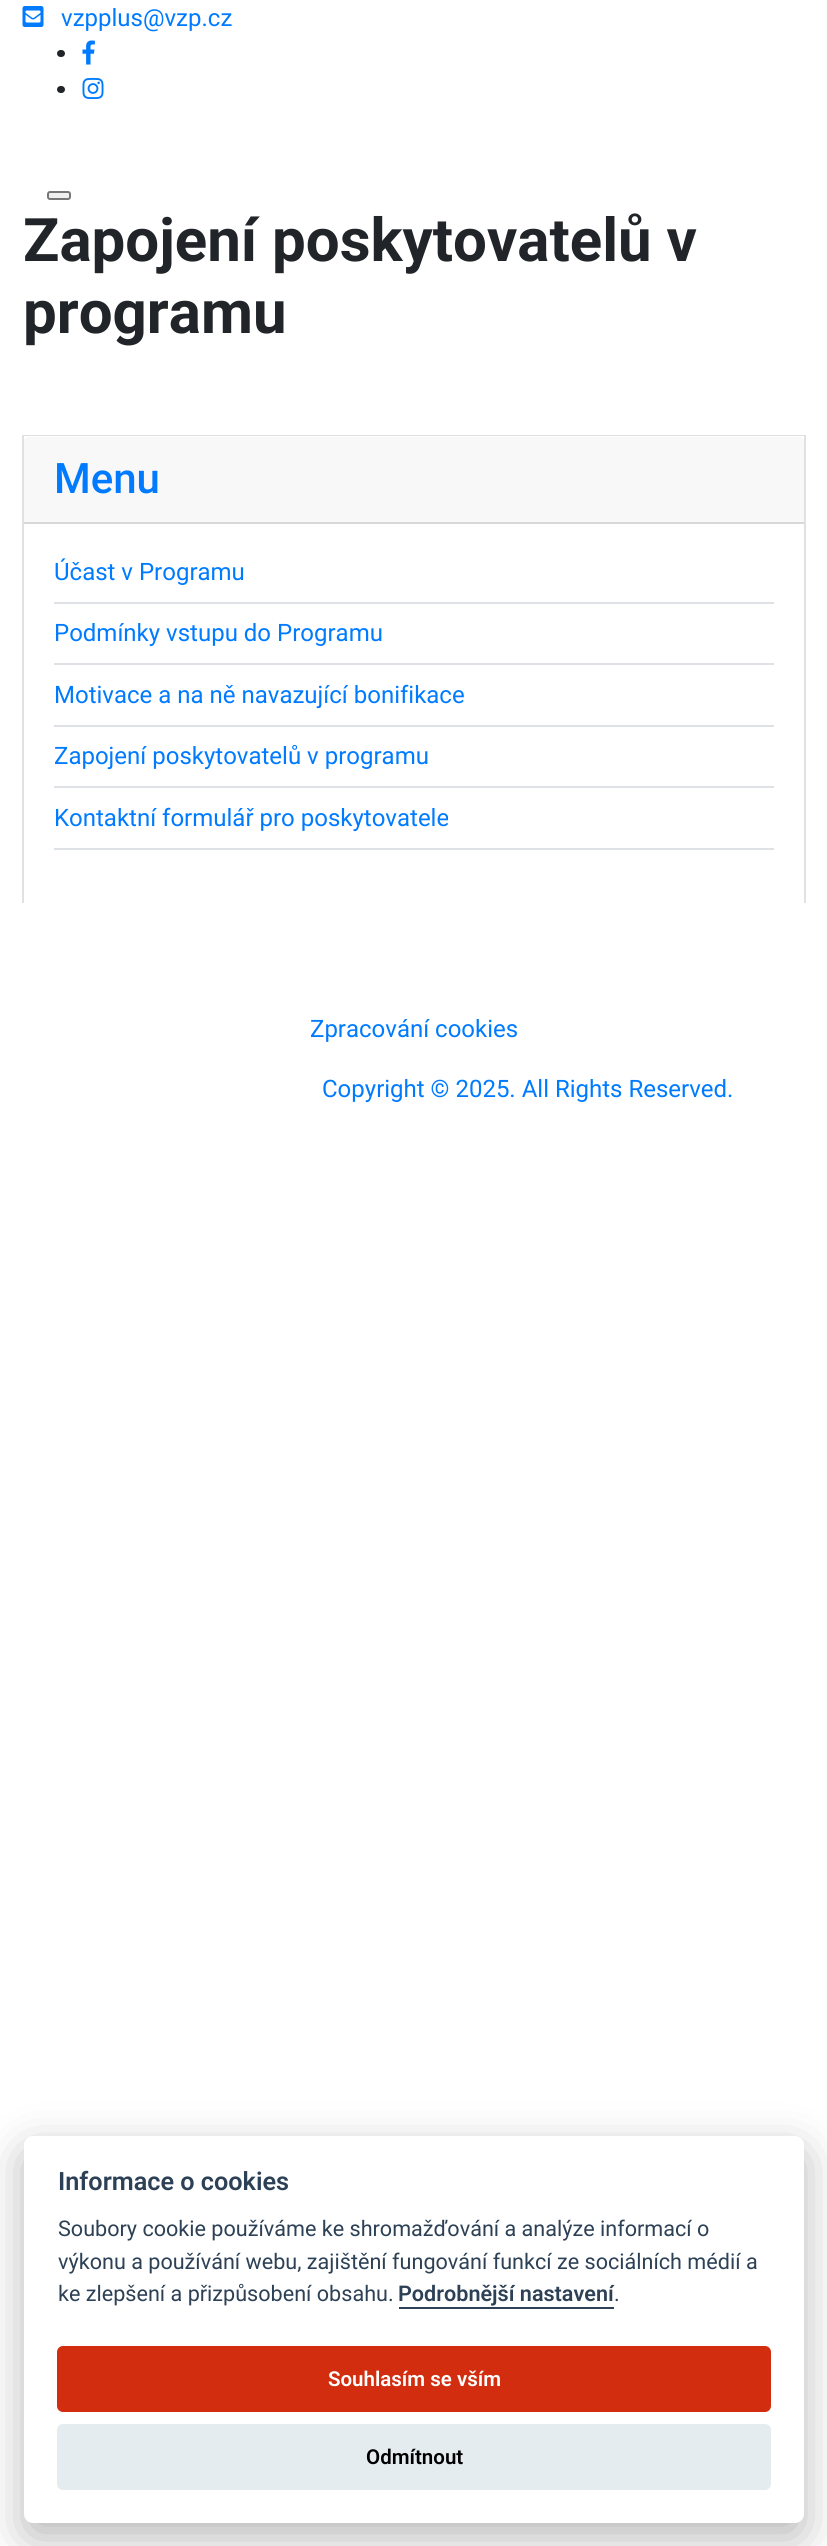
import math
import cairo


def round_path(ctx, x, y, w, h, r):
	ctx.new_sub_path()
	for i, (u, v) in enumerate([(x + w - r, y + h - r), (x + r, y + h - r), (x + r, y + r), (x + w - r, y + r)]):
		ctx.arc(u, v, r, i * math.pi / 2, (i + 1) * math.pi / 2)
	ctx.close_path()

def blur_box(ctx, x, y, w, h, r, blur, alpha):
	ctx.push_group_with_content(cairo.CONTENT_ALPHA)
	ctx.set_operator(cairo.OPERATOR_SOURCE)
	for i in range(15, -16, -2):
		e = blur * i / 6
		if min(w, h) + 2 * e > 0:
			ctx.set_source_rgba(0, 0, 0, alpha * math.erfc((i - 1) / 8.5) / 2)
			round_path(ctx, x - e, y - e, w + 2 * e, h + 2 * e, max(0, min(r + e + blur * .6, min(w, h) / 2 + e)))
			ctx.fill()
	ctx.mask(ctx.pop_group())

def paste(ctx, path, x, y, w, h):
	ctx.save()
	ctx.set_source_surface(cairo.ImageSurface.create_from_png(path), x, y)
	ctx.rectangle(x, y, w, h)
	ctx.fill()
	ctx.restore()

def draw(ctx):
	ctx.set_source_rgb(1, 1, 1)
	ctx.paint()
	paste(ctx, 'media/1.png', 22, 6, 22, 21)
	ctx.select_font_face('Roboto')
	ctx.set_font_size(24)
	ctx.set_source_rgb(0, 0.482, 1)
	ctx.move_to(61, 26)
	ctx.show_text('vzpplus@vzp.cz')
	ctx.set_source_rgb(0.129, 0.145, 0.161)
	round_path(ctx, 57, 50, 8, 7, 3.5)
	ctx.fill()
	paste(ctx, 'media/2.png', 82, 40, 13, 25)
	round_path(ctx, 57, 86, 8, 7, 3.5)
	ctx.fill()
	paste(ctx, 'media/3.png', 82, 78, 22, 21)
	ctx.set_source_rgb(0.937, 0.937, 0.937)
	round_path(ctx, 48, 192, 22, 7, 2)
	ctx.fill_preserve()
	ctx.set_source_rgb(0.463, 0.463, 0.463)
	ctx.stroke()
	ctx.select_font_face('Roboto', cairo.FONT_SLANT_NORMAL, cairo.FONT_WEIGHT_BOLD)
	ctx.set_font_size(60)
	ctx.set_source_rgb(0.129, 0.145, 0.161)
	ctx.move_to(23, 261)
	ctx.show_text('Zapojení poskytovatelů v')
	ctx.move_to(23, 333)
	ctx.show_text('programu')
	ctx.set_source_rgb(0.875, 0.875, 0.875)
	ctx.new_path()
	ctx.move_to(22, 435)
	ctx.line_to(806, 435)
	ctx.line_to(804, 436)
	ctx.line_to(24, 436)
	ctx.close_path()
	ctx.fill()
	ctx.set_source_rgba(0, 0, 0, 0.12)
	ctx.new_path()
	ctx.move_to(806, 435)
	ctx.line_to(806, 903)
	ctx.line_to(804, 903)
	ctx.line_to(804, 436)
	ctx.close_path()
	ctx.fill()
	ctx.new_path()
	ctx.move_to(22, 903)
	ctx.line_to(22, 435)
	ctx.line_to(24, 436)
	ctx.line_to(24, 903)
	ctx.close_path()
	ctx.fill()
	ctx.set_source_rgb(0.969, 0.969, 0.969)
	ctx.new_path()
	ctx.move_to(29, 437)
	ctx.line_to(799, 437)
	ctx.curve_to(802, 437, 804, 439, 804, 442)
	ctx.line_to(804, 524)
	ctx.line_to(24, 524)
	ctx.line_to(24, 442)
	ctx.curve_to(24, 439, 26, 437, 29, 437)
	ctx.close_path()
	ctx.fill()
	ctx.set_source_rgb(0.847, 0.847, 0.847)
	ctx.rectangle(24, 522, 780, 2)
	ctx.fill()
	ctx.select_font_face('Roboto Medium')
	ctx.set_font_size(42)
	ctx.set_source_rgb(0, 0.482, 1)
	ctx.move_to(54, 493)
	ctx.show_text('Menu')
	ctx.set_source_rgb(0.871, 0.886, 0.902)
	ctx.rectangle(54, 602, 720, 2)
	ctx.fill()
	ctx.select_font_face('Roboto')
	ctx.set_font_size(24)
	ctx.set_source_rgb(0, 0.482, 1)
	ctx.move_to(54, 580)
	ctx.show_text('Účast v Programu')
	ctx.set_source_rgb(0.871, 0.886, 0.902)
	ctx.rectangle(54, 663, 720, 2)
	ctx.fill()
	ctx.set_source_rgb(0, 0.482, 1)
	ctx.move_to(54, 641)
	ctx.show_text('Podmínky vstupu do Programu')
	ctx.set_source_rgb(0.871, 0.886, 0.902)
	ctx.rectangle(54, 725, 720, 2)
	ctx.fill()
	ctx.set_source_rgb(0, 0.482, 1)
	ctx.move_to(54, 703)
	ctx.show_text('Motivace a na ně navazující bonifikace')
	ctx.set_source_rgb(0.871, 0.886, 0.902)
	ctx.rectangle(54, 786, 720, 2)
	ctx.fill()
	ctx.set_source_rgb(0, 0.482, 1)
	ctx.move_to(54, 764)
	ctx.show_text('Zapojení poskytovatelů v programu')
	ctx.set_source_rgb(0.871, 0.886, 0.902)
	ctx.rectangle(54, 848, 720, 2)
	ctx.fill()
	ctx.set_source_rgb(0, 0.482, 1)
	for x, y, s in [
		(54, 826, 'Kontaktní formulář pro poskytovatele'),
		(310, 1037, 'Zpracování cookies'),
		(322, 1097, 'Copyright © 2025. All Rights Reserved.'),
	]:
		ctx.move_to(x, y)
		ctx.show_text(s)
	ctx.set_source_rgb(0.008, 0.008, 0.012)
	blur_box(ctx, 24, 2151, 780, 387, 9, 22.5, 0.28)
	ctx.set_source_rgb(1, 1, 1)
	round_path(ctx, 24, 2136, 780, 387, 9)
	ctx.fill()
	ctx.select_font_face('Roboto SemiBold')
	ctx.set_font_size(25.25)
	ctx.set_source_rgb(0.176, 0.255, 0.337)
	ctx.move_to(58, 2190)
	ctx.show_text('Informace o cookies')
	ctx.select_font_face('Roboto')
	ctx.set_font_size(21.6)
	for x, y, s in [
		(58, 2236, 'Soubory cookie používáme ke shromažďování a analýze informací o'),
		(58, 2269, 'výkonu a používání webu, zajištění fungování funkcí ze sociálních médií a'),
		(58, 2301, 'ke zlepšení a přizpůsobení obsahu.'),
	]:
		ctx.move_to(x, y)
		ctx.show_text(s)
	ctx.select_font_face('Roboto SemiBold')
	ctx.move_to(398, 2301)
	ctx.show_text('Podrobnější nastavení')
	ctx.rectangle(399, 2307, 215, 2)
	ctx.fill()
	ctx.select_font_face('Roboto')
	ctx.move_to(614, 2301)
	ctx.show_text('.')
	ctx.set_source_rgb(0.824, 0.176, 0.059)
	round_path(ctx, 57, 2346, 714, 66, 6)
	ctx.fill()
	ctx.select_font_face('Roboto SemiBold')
	ctx.set_font_size(20.5)
	ctx.set_source_rgb(1, 1, 1)
	ctx.move_to(328, 2386)
	ctx.show_text('Souhlasím se vším')
	ctx.set_source_rgb(0.898, 0.922, 0.937)
	round_path(ctx, 57, 2424, 714, 66, 6)
	ctx.fill()
	ctx.set_source_rgb(0, 0, 0)
	ctx.move_to(366, 2464)
	ctx.show_text('Odmítnout')


surface = cairo.ImageSurface(cairo.FORMAT_RGB24, 827, 2546)
ctx = cairo.Context(surface)
options = cairo.FontOptions()
options.set_hint_metrics(cairo.HINT_METRICS_OFF)
options.set_hint_style(cairo.HINT_STYLE_NONE)
ctx.set_font_options(options)
ctx.set_miter_limit(4)
draw(ctx)
surface.write_to_png('image.png')
